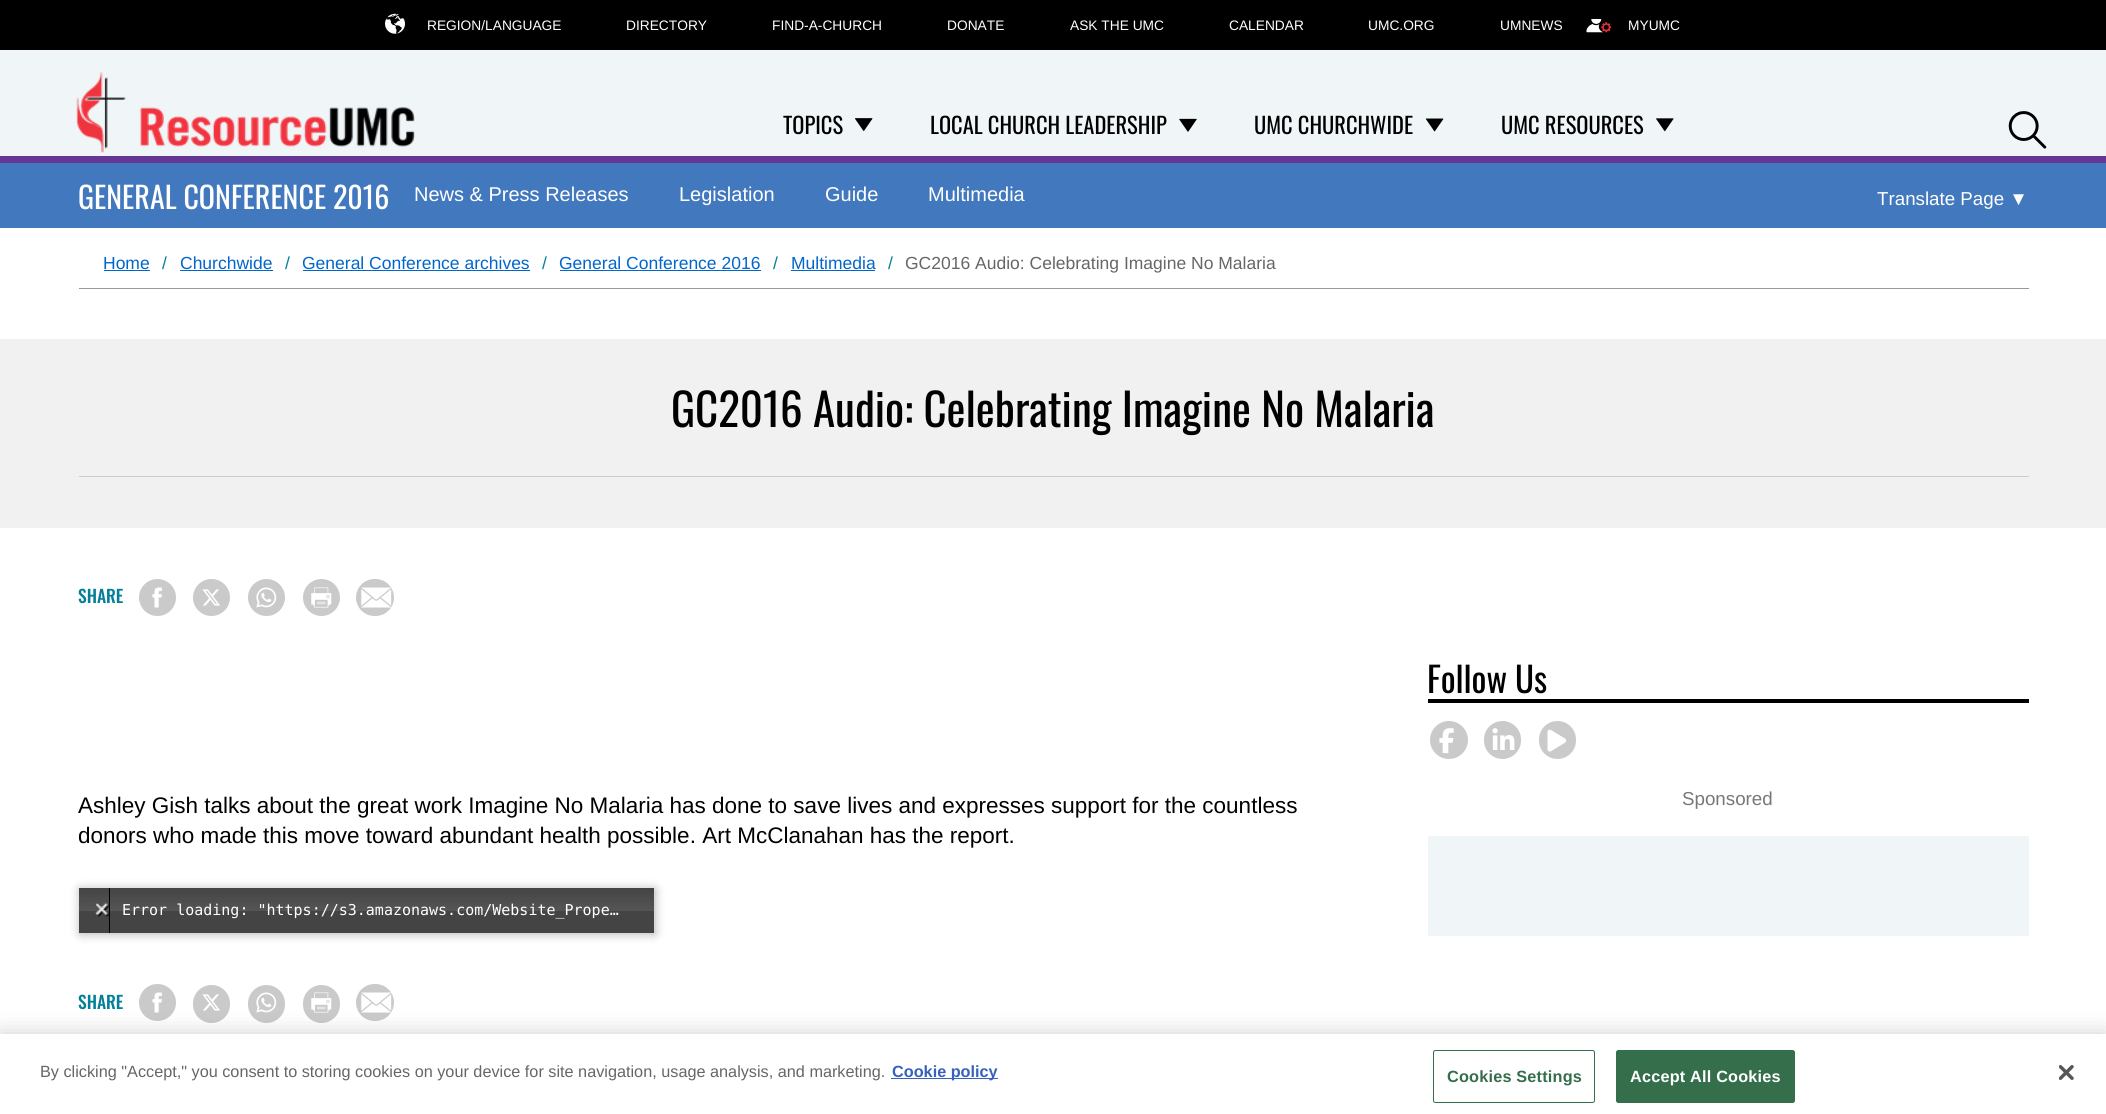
import math
import cairo


def write_spaced(ctx, x, y, s, letter, word):
	ctx.move_to(x, y)
	for ch in s:
		ctx.show_text(ch)
		ctx.rel_move_to(letter + word * (ch == ' '), 0)

def round_path(ctx, x, y, w, h, r):
	ctx.new_sub_path()
	for i, (u, v) in enumerate([(x + w - r, y + h - r), (x + r, y + h - r), (x + r, y + r), (x + w - r, y + r)]):
		ctx.arc(u, v, r, i * math.pi / 2, (i + 1) * math.pi / 2)
	ctx.close_path()

def blur_box(ctx, x, y, w, h, r, blur, alpha):
	ctx.push_group_with_content(cairo.CONTENT_ALPHA)
	ctx.set_operator(cairo.OPERATOR_SOURCE)
	for i in range(15, -16, -2):
		e = blur * i / 6
		if min(w, h) + 2 * e > 0:
			ctx.set_source_rgba(0, 0, 0, alpha * math.erfc((i - 1) / 8.5) / 2)
			round_path(ctx, x - e, y - e, w + 2 * e, h + 2 * e, max(0, min(r + e + blur * .6, min(w, h) / 2 + e)))
			ctx.fill()
	ctx.mask(ctx.pop_group())

def paste(ctx, path, x, y, w, h):
	ctx.save()
	ctx.set_source_surface(cairo.ImageSurface.create_from_png(path), x, y)
	ctx.rectangle(x, y, w, h)
	ctx.fill()
	ctx.restore()

def draw(ctx):
	ctx.set_source_rgb(1, 1, 1)
	ctx.paint()
	ctx.set_source_rgb(0.941, 0.961, 0.969)
	ctx.rectangle(0, 50, 2106, 106)
	ctx.fill()
	ctx.set_source_rgb(0.4, 0.212, 0.584)
	ctx.rectangle(0, 156, 2106, 7)
	ctx.fill()
	paste(ctx, 'media/1.png', 76, 72, 339, 81)
	ctx.set_source_rgb(0, 0, 0)
	ctx.rectangle(0, 0, 2106, 50)
	ctx.fill()
	paste(ctx, 'media/2.png', 385, 13, 20, 21)
	ctx.select_font_face('Liberation Sans')
	ctx.set_font_size(13.75)
	ctx.set_source_rgb(1, 1, 1)
	for x, y, s in [
		(427, 30, 'REGION/LANGUAGE'),
		(626, 30, 'DIRECTORY'),
		(772, 30, 'FIND-A-CHURCH'),
		(947, 30, 'DONATE'),
		(1070, 30, 'ASK THE UMC'),
		(1229, 30, 'CALENDAR'),
		(1368, 30, 'UMC.ORG'),
		(1500, 30, 'UMNEWS'),
	]:
		ctx.move_to(x, y)
		ctx.show_text(s)
	paste(ctx, 'media/3.png', 1586, 19, 25, 14)
	ctx.move_to(1628, 30)
	ctx.show_text('MYUMC')
	ctx.select_font_face('Oswald')
	ctx.set_font_size(22.5)
	ctx.set_source_rgb(0, 0, 0)
	ctx.move_to(783, 134)
	ctx.show_text('TOPICS')
	paste(ctx, 'media/4.png', 855, 118, 18, 13)
	ctx.move_to(930, 134)
	ctx.show_text('LOCAL CHURCH LEADERSHIP')
	paste(ctx, 'media/5.png', 1179, 118, 18, 14)
	ctx.move_to(1254, 134)
	ctx.show_text('UMC CHURCHWIDE')
	paste(ctx, 'media/6.png', 1425, 118, 19, 14)
	ctx.move_to(1501, 134)
	ctx.show_text('UMC RESOURCES')
	paste(ctx, 'media/7.png', 1656, 118, 18, 14)
	paste(ctx, 'media/8.png', 2008, 111, 39, 38)
	ctx.set_source_rgb(0.259, 0.471, 0.741)
	ctx.rectangle(0, 163, 2106, 65)
	ctx.fill()
	ctx.set_font_size(30)
	ctx.set_source_rgb(1, 1, 1)
	ctx.move_to(78, 209)
	ctx.show_text('GENERAL CONFERENCE 2016')
	ctx.select_font_face('Liberation Sans')
	ctx.set_font_size(20)
	for x, y, s in [
		(414, 201, 'News & Press Releases'),
		(679, 201, 'Legislation'),
		(825, 201, 'Guide'),
		(928, 201, 'Multimedia'),
	]:
		ctx.move_to(x, y)
		ctx.show_text(s)
	ctx.set_font_size(18.75)
	ctx.move_to(1877, 205)
	ctx.show_text('Translate Page ▼')
	ctx.set_source_rgb(0.6, 0.6, 0.6)
	ctx.rectangle(79, 288, 1950, 1)
	ctx.fill()
	ctx.set_font_size(17.5)
	ctx.set_source_rgb(0, 0.4, 0.8)
	ctx.move_to(103, 269)
	ctx.show_text('Home')
	ctx.rectangle(104, 270, 46, 1)
	ctx.fill()
	ctx.set_source_rgb(0.016, 0.498, 0.604)
	ctx.move_to(162, 269)
	ctx.show_text('/')
	ctx.set_source_rgb(0, 0.4, 0.8)
	ctx.move_to(180, 269)
	ctx.show_text('Churchwide')
	ctx.rectangle(180, 270, 93, 1)
	ctx.fill()
	ctx.set_source_rgb(0.016, 0.498, 0.604)
	ctx.move_to(285, 269)
	ctx.show_text('/')
	ctx.set_source_rgb(0, 0.4, 0.8)
	ctx.move_to(302, 269)
	ctx.show_text('General Conference archives')
	ctx.rectangle(303, 270, 227, 1)
	ctx.fill()
	ctx.set_source_rgb(0.016, 0.498, 0.604)
	ctx.move_to(542, 269)
	ctx.show_text('/')
	ctx.set_source_rgb(0, 0.4, 0.8)
	ctx.move_to(559, 269)
	ctx.show_text('General Conference 2016')
	ctx.rectangle(560, 270, 201, 1)
	ctx.fill()
	ctx.set_source_rgb(0.016, 0.498, 0.604)
	ctx.move_to(773, 269)
	ctx.show_text('/')
	ctx.set_source_rgb(0, 0.4, 0.8)
	ctx.move_to(791, 269)
	ctx.show_text('Multimedia')
	ctx.rectangle(791, 270, 84, 1)
	ctx.fill()
	ctx.set_source_rgb(0.016, 0.498, 0.604)
	ctx.move_to(888, 269)
	ctx.show_text('/')
	ctx.set_source_rgb(0.4, 0.4, 0.4)
	ctx.move_to(905, 269)
	ctx.show_text('GC2016 Audio: Celebrating Imagine No Malaria')
	ctx.set_source_rgb(0.945, 0.945, 0.945)
	ctx.rectangle(0, 339, 2106, 189)
	ctx.fill()
	ctx.set_source_rgb(0.8, 0.8, 0.8)
	ctx.rectangle(79, 476, 1950, 1)
	ctx.fill()
	ctx.select_font_face('Oswald')
	ctx.set_font_size(45)
	ctx.set_source_rgb(0, 0, 0)
	ctx.move_to(671, 427)
	ctx.show_text('GC2016 Audio: Celebrating Imagine No Malaria')
	ctx.select_font_face('Oswald Medium')
	ctx.set_font_size(17.5)
	ctx.set_source_rgb(0.016, 0.498, 0.604)
	ctx.move_to(78, 603)
	ctx.show_text('SHARE')
	ctx.set_source_rgb(0.792, 0.792, 0.792)
	ctx.new_path()
	ctx.arc(157.5, 597.5, 18.5, 0, 2 * math.pi)
	ctx.fill()
	paste(ctx, 'media/9.png', 152, 587, 10, 21)
	ctx.arc(211.5, 597.5, 18.5, 0, 2 * math.pi)
	ctx.fill()
	paste(ctx, 'media/10.png', 202, 589, 18, 17)
	ctx.arc(266.5, 597.5, 18.5, 0, 2 * math.pi)
	ctx.fill()
	paste(ctx, 'media/11.png', 256, 587, 21, 21)
	ctx.arc(321.5, 597.5, 18.5, 0, 2 * math.pi)
	ctx.fill()
	paste(ctx, 'media/12.png', 311, 587, 21, 21)
	round_path(ctx, 356, 579, 38, 37, 18.5)
	ctx.fill()
	paste(ctx, 'media/13.png', 361, 587, 31, 21)
	ctx.set_source_rgb(0, 0, 0)
	ctx.rectangle(1428, 699, 601, 4)
	ctx.fill()
	ctx.select_font_face('Oswald')
	ctx.set_font_size(35)
	ctx.move_to(1427, 693)
	ctx.show_text('Follow Us')
	ctx.set_source_rgb(0.792, 0.792, 0.792)
	ctx.new_path()
	ctx.arc(1449, 740, 19, 0, 2 * math.pi)
	ctx.fill()
	paste(ctx, 'media/14.png', 1439, 728, 15, 26)
	round_path(ctx, 1484, 721, 37, 38, 18.5)
	ctx.fill()
	paste(ctx, 'media/15.png', 1492, 728, 23, 22)
	round_path(ctx, 1539, 721, 37, 38, 18.5)
	ctx.fill()
	paste(ctx, 'media/16.png', 1547, 729, 20, 23)
	ctx.select_font_face('Liberation Sans')
	ctx.set_font_size(18.75)
	ctx.set_source_rgb(0.475, 0.463, 0.463)
	ctx.move_to(1682, 805)
	ctx.show_text('Sponsored')
	ctx.set_source_rgb(0.941, 0.961, 0.969)
	ctx.rectangle(1428, 836, 601, 100)
	ctx.fill()
	ctx.set_font_size(22.5)
	ctx.set_source_rgb(0, 0, 0)
	ctx.move_to(78, 813)
	ctx.show_text('Ashley Gish talks about the great work Imagine No Malaria has done to save lives and expresses support for the countless')
	ctx.move_to(78, 843)
	ctx.show_text('donors who made this move toward abundant health possible. Art McClanahan has the report.')
	ctx.set_source_rgb(0, 0, 0)
	blur_box(ctx, 80, 889, 575, 45, 0, 5, 0.3)
	gradient = cairo.LinearGradient(79, 888, 79, 933)
	gradient.add_color_stop_rgba(0, 0.267, 0.267, 0.267, 1)
	gradient.add_color_stop_rgba(0.5, 0.333, 0.333, 0.333, 1)
	gradient.add_color_stop_rgba(0.51, 0.267, 0.267, 0.267, 1)
	gradient.add_color_stop_rgba(1, 0.267, 0.267, 0.267, 1)
	ctx.set_source(gradient)
	ctx.rectangle(79, 888, 575, 45)
	ctx.fill()
	ctx.set_source_rgb(0, 0, 0)
	ctx.rectangle(109, 888, 1, 45)
	ctx.fill()
	paste(ctx, 'media/17.png', 95, 902, 14, 15)
	ctx.select_font_face('DejaVu Sans Mono')
	ctx.set_font_size(15)
	ctx.set_source_rgb(1, 1, 1)
	ctx.move_to(122, 915)
	ctx.show_text('Error loading: "https://s3.amazonaws.com/Website_Prope…')
	ctx.select_font_face('Oswald Medium')
	ctx.set_font_size(17.5)
	ctx.set_source_rgb(0.016, 0.498, 0.604)
	ctx.move_to(78, 1009)
	ctx.show_text('SHARE')
	ctx.set_source_rgb(0.792, 0.792, 0.792)
	ctx.new_path()
	ctx.arc(157.5, 1002.5, 18.5, 0, 2 * math.pi)
	ctx.fill()
	paste(ctx, 'media/9.png', 152, 992, 10, 21)
	round_path(ctx, 193, 985, 37, 38, 18.5)
	ctx.fill()
	paste(ctx, 'media/10.png', 202, 994, 18, 17)
	round_path(ctx, 248, 985, 37, 38, 18.5)
	ctx.fill()
	paste(ctx, 'media/11.png', 256, 992, 21, 21)
	round_path(ctx, 303, 985, 37, 38, 18.5)
	ctx.fill()
	paste(ctx, 'media/12.png', 311, 992, 21, 21)
	round_path(ctx, 356, 984, 38, 37, 18.5)
	ctx.fill()
	paste(ctx, 'media/13.png', 361, 992, 31, 21)
	ctx.set_source_rgb(0, 0, 0)
	blur_box(ctx, 0, 1034, 2106, 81, 0, 11, 0.2)
	ctx.set_source_rgb(1, 1, 1)
	ctx.rectangle(0, 1034, 2106, 80)
	ctx.fill()
	ctx.select_font_face('Liberation Sans')
	ctx.set_font_size(16.25)
	ctx.set_source_rgb(0.4, 0.4, 0.4)
	ctx.move_to(40, 1077)
	ctx.show_text('By clicking "Accept," you consent to storing cookies on your device for site navigation, usage analysis, and marketing.')
	ctx.set_source_rgb(0.22, 0.376, 0.745)
	ctx.rectangle(891, 1078, 107, 1)
	ctx.fill()
	ctx.select_font_face('Liberation Sans', cairo.FONT_SLANT_NORMAL, cairo.FONT_WEIGHT_BOLD)
	ctx.move_to(892, 1077)
	ctx.show_text('Cookie policy')
	round_path(ctx, 1433.5, 1050.5, 161, 52, 2)
	ctx.set_source_rgb(0.204, 0.431, 0.29)
	ctx.set_line_width(1)
	ctx.stroke()
	write_spaced(ctx, 1447, 1082, 'Cookies Settings', 0.2, 0)
	round_path(ctx, 1616.5, 1050.5, 178, 52, 2)
	ctx.fill_preserve()
	ctx.stroke()
	ctx.set_source_rgb(1, 1, 1)
	write_spaced(ctx, 1630, 1082, 'Accept All Cookies', 0.2, 0)
	paste(ctx, 'media/18.png', 2059, 1065, 15, 15)


surface = cairo.ImageSurface(cairo.FORMAT_RGB24, 2106, 1114)
ctx = cairo.Context(surface)
options = cairo.FontOptions()
options.set_hint_metrics(cairo.HINT_METRICS_OFF)
options.set_hint_style(cairo.HINT_STYLE_NONE)
ctx.set_font_options(options)
ctx.set_miter_limit(4)
draw(ctx)
surface.write_to_png('image.png')
